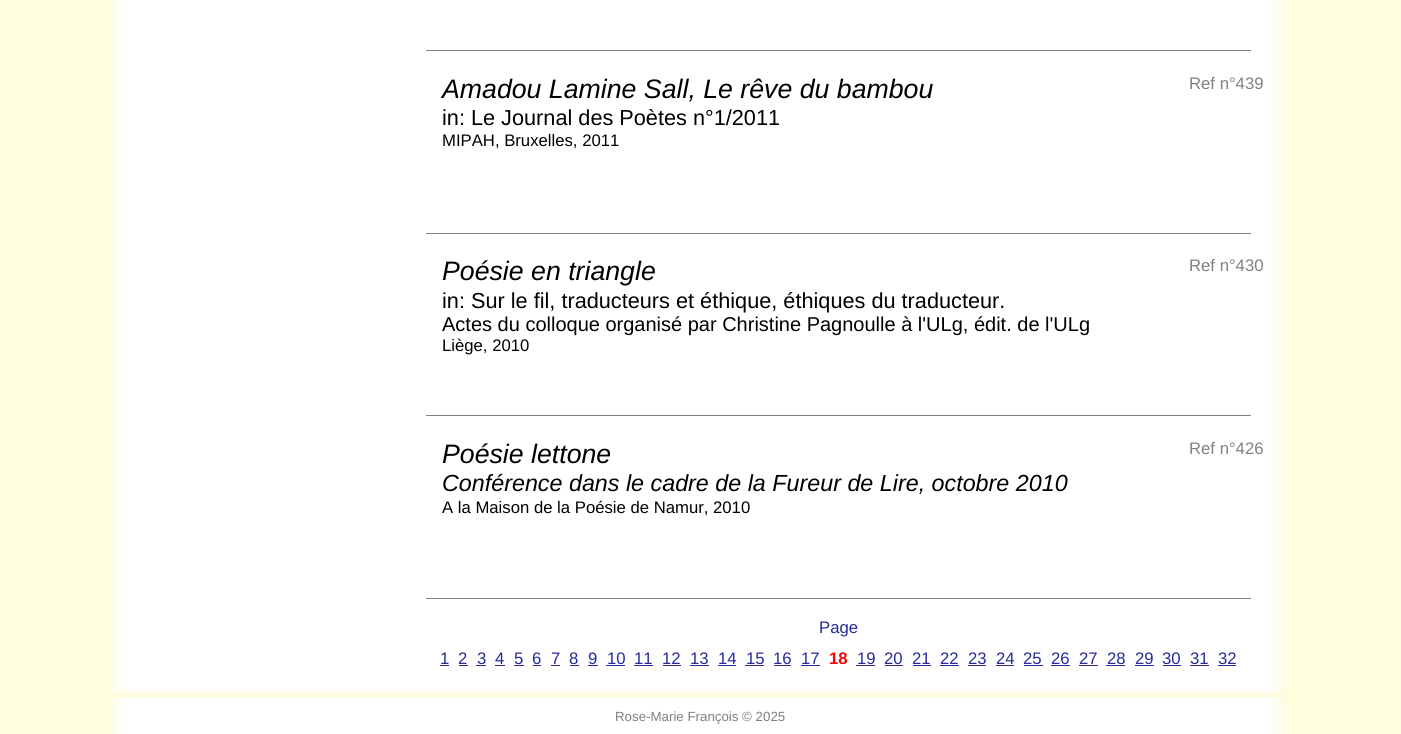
import math
import cairo


def paste(ctx, path, x, y, w, h):
	ctx.save()
	ctx.set_source_surface(cairo.ImageSurface.create_from_png(path), x, y)
	ctx.rectangle(x, y, w, h)
	ctx.fill()
	ctx.restore()

def draw(ctx):
	ctx.set_source_rgb(1, 1, 0.867)
	ctx.paint()
	paste(ctx, 'media/1.png', 109, 0, 1178, 734)
	ctx.set_source_rgb(0.502, 0.502, 0.502)
	ctx.rectangle(426, 50, 825, 1)
	ctx.fill()
	ctx.rectangle(426, 233, 825, 1)
	ctx.fill()
	ctx.select_font_face('Liberation Sans', cairo.FONT_SLANT_ITALIC)
	ctx.set_font_size(26.7)
	ctx.set_source_rgb(0, 0, 0)
	ctx.move_to(442, 98)
	ctx.show_text('Amadou Lamine Sall, Le rêve du bambou')
	ctx.select_font_face('Liberation Sans')
	ctx.set_font_size(21.7)
	ctx.move_to(442, 125)
	ctx.show_text('in: Le Journal des Poètes n°1/2011')
	ctx.set_font_size(16.7)
	ctx.move_to(442, 146)
	ctx.show_text('MIPAH, Bruxelles, 2011')
	ctx.set_source_rgb(0.502, 0.502, 0.502)
	ctx.move_to(1189, 89)
	ctx.show_text('Ref n°439')
	ctx.rectangle(426, 415, 825, 1)
	ctx.fill()
	ctx.select_font_face('Liberation Sans', cairo.FONT_SLANT_ITALIC)
	ctx.set_font_size(26.7)
	ctx.set_source_rgb(0, 0, 0)
	ctx.move_to(442, 280)
	ctx.show_text('Poésie en triangle')
	ctx.select_font_face('Liberation Sans')
	ctx.set_font_size(21.7)
	ctx.move_to(442, 308)
	ctx.show_text('in: Sur le fil, traducteurs et éthique, éthiques du traducteur.')
	ctx.set_font_size(20)
	ctx.move_to(442, 331)
	ctx.show_text('Actes du colloque organisé par Christine Pagnoulle à l\'ULg, édit. de l\'ULg')
	ctx.set_font_size(16.7)
	ctx.move_to(442, 351)
	ctx.show_text('Liège, 2010')
	ctx.set_source_rgb(0.502, 0.502, 0.502)
	ctx.move_to(1189, 271)
	ctx.show_text('Ref n°430')
	ctx.rectangle(426, 598, 825, 1)
	ctx.fill()
	ctx.select_font_face('Liberation Sans', cairo.FONT_SLANT_ITALIC)
	ctx.set_font_size(26.7)
	ctx.set_source_rgb(0, 0, 0)
	ctx.move_to(442, 463)
	ctx.show_text('Poésie lettone')
	ctx.set_font_size(23.3)
	ctx.move_to(442, 491)
	ctx.show_text('Conférence dans le cadre de la Fureur de Lire, octobre 2010')
	ctx.select_font_face('Liberation Sans')
	ctx.set_font_size(16.7)
	ctx.move_to(442, 513)
	ctx.show_text('A la Maison de la Poésie de Namur, 2010')
	ctx.set_source_rgb(0.502, 0.502, 0.502)
	ctx.move_to(1189, 454)
	ctx.show_text('Ref n°426')
	ctx.set_source_rgb(0.149, 0.161, 0.6)
	ctx.move_to(819, 633)
	ctx.show_text('Page')
	ctx.move_to(440, 664)
	ctx.show_text('1')
	ctx.rectangle(440, 665, 9, 1)
	ctx.fill()
	ctx.move_to(458, 664)
	ctx.show_text('2')
	ctx.rectangle(459, 665, 9, 1)
	ctx.fill()
	ctx.move_to(477, 664)
	ctx.show_text('3')
	ctx.rectangle(476, 665, 10, 1)
	ctx.fill()
	ctx.move_to(495, 664)
	ctx.show_text('4')
	ctx.rectangle(495, 665, 10, 1)
	ctx.fill()
	ctx.move_to(514, 664)
	ctx.show_text('5')
	ctx.rectangle(514, 665, 10, 1)
	ctx.fill()
	ctx.move_to(532, 664)
	ctx.show_text('6')
	ctx.rectangle(533, 665, 8, 1)
	ctx.fill()
	ctx.move_to(551, 664)
	ctx.show_text('7')
	ctx.rectangle(551, 665, 9, 1)
	ctx.fill()
	ctx.move_to(569, 664)
	ctx.show_text('8')
	ctx.rectangle(570, 665, 9, 1)
	ctx.fill()
	ctx.move_to(588, 664)
	ctx.show_text('9')
	ctx.rectangle(588, 665, 10, 1)
	ctx.fill()
	ctx.move_to(607, 664)
	ctx.show_text('10')
	ctx.rectangle(606, 665, 19, 1)
	ctx.fill()
	ctx.move_to(634, 664)
	ctx.show_text('11')
	ctx.rectangle(634, 665, 19, 1)
	ctx.fill()
	ctx.move_to(662, 664)
	ctx.show_text('12')
	ctx.rectangle(663, 665, 18, 1)
	ctx.fill()
	ctx.move_to(690, 664)
	ctx.show_text('13')
	ctx.rectangle(690, 665, 19, 1)
	ctx.fill()
	ctx.move_to(718, 664)
	ctx.show_text('14')
	ctx.rectangle(718, 665, 18, 1)
	ctx.fill()
	ctx.move_to(746, 664)
	ctx.show_text('15')
	ctx.rectangle(745, 665, 19, 1)
	ctx.fill()
	ctx.move_to(773, 664)
	ctx.show_text('16')
	ctx.rectangle(774, 665, 17, 1)
	ctx.fill()
	ctx.move_to(801, 664)
	ctx.show_text('17')
	ctx.rectangle(801, 665, 19, 1)
	ctx.fill()
	ctx.select_font_face('Liberation Sans', cairo.FONT_SLANT_NORMAL, cairo.FONT_WEIGHT_BOLD)
	ctx.set_source_rgb(1, 0, 0)
	ctx.move_to(829, 664)
	ctx.show_text('18')
	ctx.select_font_face('Liberation Sans')
	ctx.set_source_rgb(0.149, 0.161, 0.6)
	ctx.move_to(857, 664)
	ctx.show_text('19')
	ctx.rectangle(856, 665, 19, 1)
	ctx.fill()
	ctx.move_to(884, 664)
	ctx.show_text('20')
	ctx.rectangle(885, 665, 18, 1)
	ctx.fill()
	ctx.move_to(912, 664)
	ctx.show_text('21')
	ctx.rectangle(913, 665, 18, 1)
	ctx.fill()
	ctx.move_to(940, 664)
	ctx.show_text('22')
	ctx.rectangle(940, 665, 19, 1)
	ctx.fill()
	ctx.move_to(968, 664)
	ctx.show_text('23')
	ctx.rectangle(968, 665, 18, 1)
	ctx.fill()
	ctx.move_to(996, 664)
	ctx.show_text('24')
	ctx.rectangle(996, 665, 18, 1)
	ctx.fill()
	ctx.move_to(1023, 664)
	ctx.show_text('25')
	ctx.rectangle(1024, 665, 19, 1)
	ctx.fill()
	ctx.move_to(1051, 664)
	ctx.show_text('26')
	ctx.rectangle(1051, 665, 19, 1)
	ctx.fill()
	ctx.move_to(1079, 664)
	ctx.show_text('27')
	ctx.rectangle(1079, 665, 19, 1)
	ctx.fill()
	ctx.move_to(1107, 664)
	ctx.show_text('28')
	ctx.rectangle(1106, 665, 19, 1)
	ctx.fill()
	ctx.move_to(1135, 664)
	ctx.show_text('29')
	ctx.rectangle(1135, 665, 19, 1)
	ctx.fill()
	ctx.move_to(1162, 664)
	ctx.show_text('30')
	ctx.rectangle(1163, 665, 18, 1)
	ctx.fill()
	ctx.move_to(1190, 664)
	ctx.show_text('31')
	ctx.rectangle(1190, 665, 19, 1)
	ctx.fill()
	ctx.move_to(1218, 664)
	ctx.show_text('32')
	ctx.rectangle(1218, 665, 18, 1)
	ctx.fill()
	ctx.set_source_rgb(0.992, 0.988, 0.878)
	ctx.rectangle(111, 692, 1173, 6)
	ctx.fill()
	ctx.set_font_size(13.3)
	ctx.set_source_rgb(0.502, 0.502, 0.502)
	ctx.move_to(615, 721)
	ctx.show_text('Rose-Marie François © 2025')


surface = cairo.ImageSurface(cairo.FORMAT_RGB24, 1401, 734)
ctx = cairo.Context(surface)
options = cairo.FontOptions()
options.set_hint_metrics(cairo.HINT_METRICS_OFF)
options.set_hint_style(cairo.HINT_STYLE_NONE)
ctx.set_font_options(options)
ctx.set_miter_limit(4)
draw(ctx)
surface.write_to_png('image.png')
